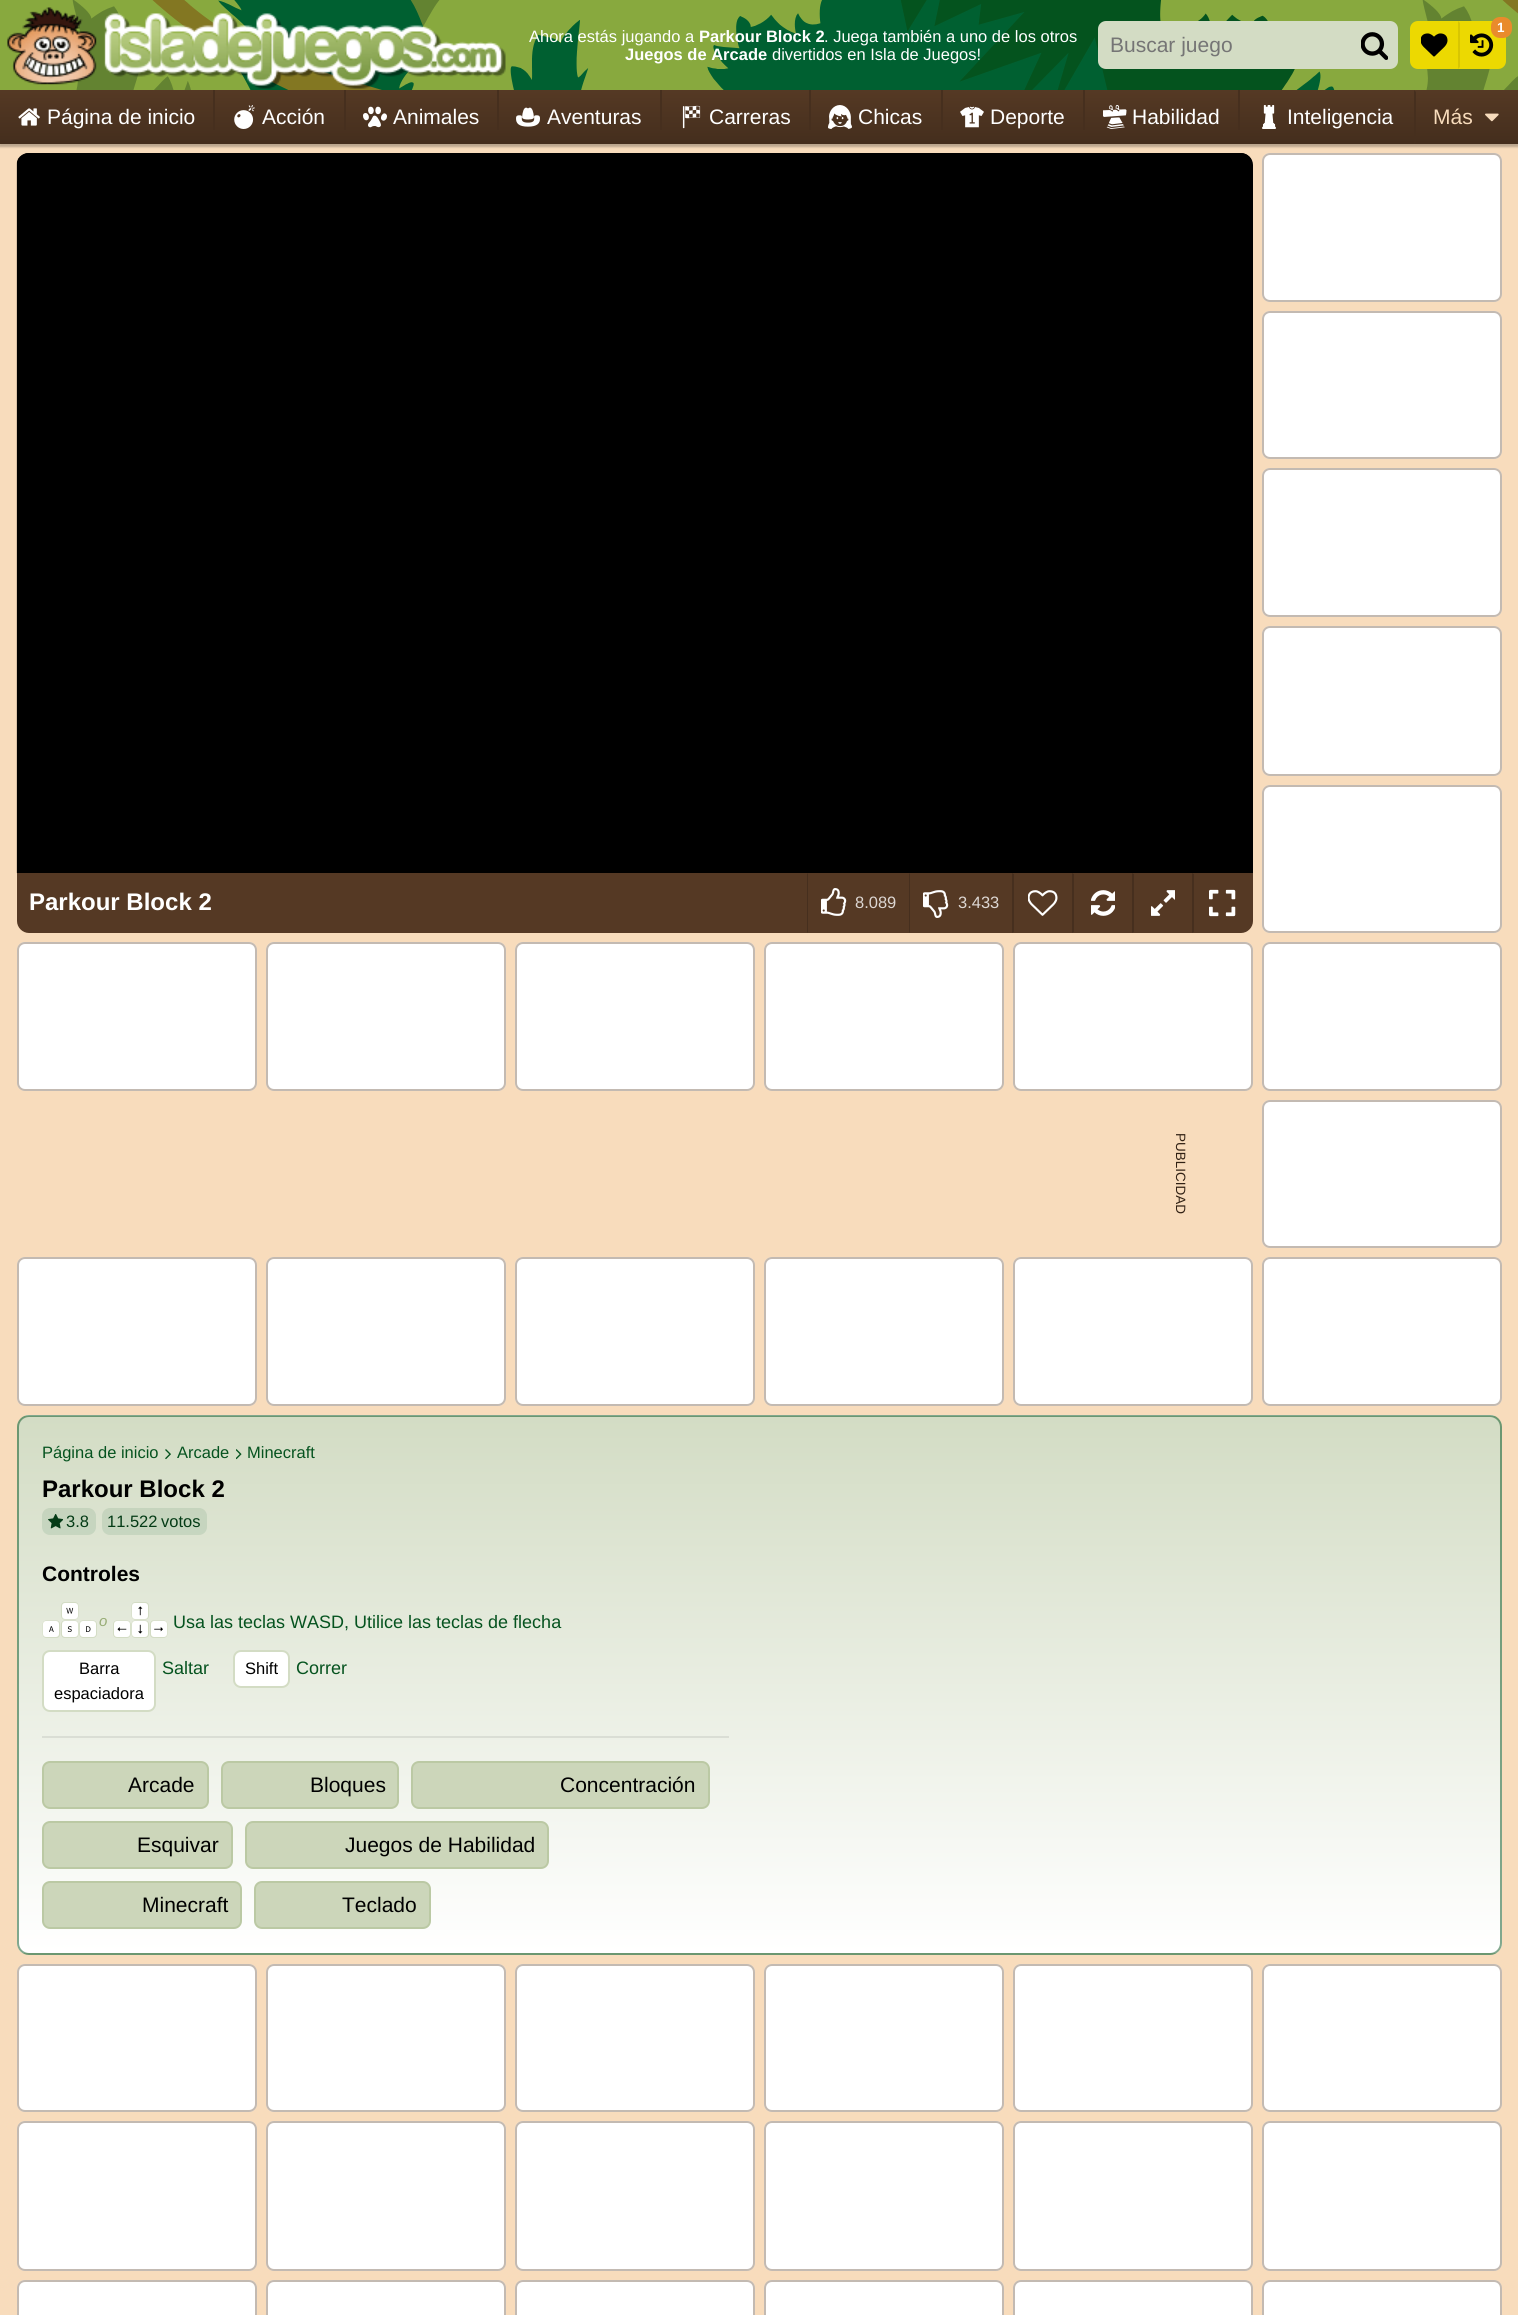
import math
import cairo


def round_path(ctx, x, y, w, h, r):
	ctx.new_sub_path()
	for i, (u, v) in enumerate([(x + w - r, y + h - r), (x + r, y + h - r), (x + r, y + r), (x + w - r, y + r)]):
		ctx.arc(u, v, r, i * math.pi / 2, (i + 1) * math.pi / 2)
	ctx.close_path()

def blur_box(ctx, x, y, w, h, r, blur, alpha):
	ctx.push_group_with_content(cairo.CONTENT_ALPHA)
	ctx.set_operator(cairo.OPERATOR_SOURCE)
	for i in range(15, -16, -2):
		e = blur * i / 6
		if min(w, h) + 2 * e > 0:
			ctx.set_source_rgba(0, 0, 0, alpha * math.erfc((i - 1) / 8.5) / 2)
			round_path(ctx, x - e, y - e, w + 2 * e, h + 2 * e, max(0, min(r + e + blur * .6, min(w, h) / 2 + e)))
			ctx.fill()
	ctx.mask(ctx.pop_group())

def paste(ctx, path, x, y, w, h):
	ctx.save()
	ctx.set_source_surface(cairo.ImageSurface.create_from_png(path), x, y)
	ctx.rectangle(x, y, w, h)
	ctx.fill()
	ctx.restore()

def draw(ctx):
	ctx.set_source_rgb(0.969, 0.863, 0.737)
	ctx.paint()
	ctx.set_source_rgb(0, 0, 0)
	blur_box(ctx, -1, 90, 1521, 57, 0, 1, 0.25)
	ctx.set_source_rgb(0.388, 0.514, 0.192)
	ctx.rectangle(70, 0, 1448, 90)
	ctx.fill()
	paste(ctx, 'media/1.png', 0, 0, 1518, 90)
	paste(ctx, 'media/2.png', 7, 7, 499, 82)
	ctx.set_source_rgb(0.925, 0.851, 0.004)
	ctx.new_path()
	ctx.move_to(1418, 21)
	ctx.line_to(1458, 21)
	ctx.line_to(1458, 69)
	ctx.line_to(1418, 69)
	ctx.curve_to(1413.5, 69, 1410, 65.5, 1410, 61)
	ctx.line_to(1410, 29)
	ctx.curve_to(1410, 24.5, 1413.5, 21, 1418, 21)
	ctx.close_path()
	ctx.fill()
	paste(ctx, 'media/3.png', 1421, 33, 27, 24)
	ctx.new_path()
	ctx.move_to(1458, 21)
	ctx.line_to(1498, 21)
	ctx.curve_to(1502.5, 21, 1506, 24.5, 1506, 29)
	ctx.line_to(1506, 61)
	ctx.curve_to(1506, 65.5, 1502.5, 69, 1498, 69)
	ctx.line_to(1458, 69)
	ctx.close_path()
	ctx.fill()
	ctx.set_source_rgb(0.847, 0.776, 0.004)
	ctx.new_path()
	ctx.move_to(1458, 21)
	ctx.line_to(1458, 69)
	ctx.line_to(1460, 67)
	ctx.line_to(1460, 23)
	ctx.close_path()
	ctx.fill()
	paste(ctx, 'media/4.png', 1470, 33, 24, 24)
	ctx.set_source_rgb(0.914, 0.545, 0.173)
	round_path(ctx, 1491, 17, 21, 21, 9)
	ctx.fill()
	ctx.select_font_face('Liberation Sans', cairo.FONT_SLANT_NORMAL, cairo.FONT_WEIGHT_BOLD)
	ctx.set_font_size(13.5)
	ctx.set_source_rgb(1, 1, 1)
	ctx.move_to(1497, 32)
	ctx.show_text('1')
	ctx.select_font_face('Liberation Sans')
	ctx.set_font_size(16.5)
	ctx.move_to(529, 42)
	ctx.show_text('Ahora estás jugando a')
	ctx.select_font_face('Liberation Sans', cairo.FONT_SLANT_NORMAL, cairo.FONT_WEIGHT_BOLD)
	ctx.move_to(699, 42)
	ctx.show_text('Parkour Block 2')
	ctx.select_font_face('Liberation Sans')
	ctx.move_to(824, 42)
	ctx.show_text('. Juega también a uno de los otros')
	ctx.select_font_face('Liberation Sans', cairo.FONT_SLANT_NORMAL, cairo.FONT_WEIGHT_BOLD)
	ctx.move_to(625, 60)
	ctx.show_text('Juegos de Arcade')
	ctx.select_font_face('Liberation Sans')
	ctx.move_to(772, 60)
	ctx.show_text('divertidos en Isla de Juegos!')
	ctx.set_source_rgb(0.827, 0.863, 0.769)
	round_path(ctx, 1098, 21, 300, 48, 8)
	ctx.fill()
	ctx.set_font_size(21)
	ctx.set_source_rgb(0.459, 0.459, 0.459)
	ctx.move_to(1110, 52)
	ctx.show_text('Buscar juego')
	paste(ctx, 'media/5.png', 1361, 32, 27, 28)
	gradient = cairo.LinearGradient(759, 90, 759, 144)
	gradient.add_color_stop_rgba(0, 0.333, 0.224, 0.141, 1)
	gradient.add_color_stop_rgba(1, 0.267, 0.18, 0.114, 1)
	ctx.set_source(gradient)
	ctx.rectangle(0, 90, 1518, 54)
	ctx.fill()
	paste(ctx, 'media/6.png', 18, 108, 22, 18)
	ctx.set_source_rgb(1, 1, 1)
	ctx.move_to(47, 124)
	ctx.show_text('Página de inicio')
	ctx.set_source_rgb(0.275, 0.184, 0.118)
	ctx.rectangle(213, 90, 2, 40)
	ctx.fill()
	paste(ctx, 'media/7.png', 234, 105, 21, 24)
	ctx.set_source_rgb(1, 1, 1)
	ctx.move_to(262, 124)
	ctx.show_text('Acción')
	ctx.set_source_rgb(0.275, 0.184, 0.118)
	ctx.rectangle(344, 90, 2, 40)
	ctx.fill()
	paste(ctx, 'media/8.png', 363, 106, 24, 22)
	ctx.set_source_rgb(1, 1, 1)
	ctx.move_to(393, 124)
	ctx.show_text('Animales')
	ctx.set_source_rgb(0.275, 0.184, 0.118)
	ctx.rectangle(497, 90, 2, 40)
	ctx.fill()
	paste(ctx, 'media/9.png', 516, 107, 24, 20)
	ctx.set_source_rgb(1, 1, 1)
	ctx.move_to(547, 124)
	ctx.show_text('Aventuras')
	ctx.set_source_rgb(0.275, 0.184, 0.118)
	ctx.rectangle(660, 90, 2, 40)
	ctx.fill()
	paste(ctx, 'media/10.png', 682, 105, 19, 24)
	ctx.set_source_rgb(1, 1, 1)
	ctx.move_to(709, 124)
	ctx.show_text('Carreras')
	ctx.set_source_rgb(0.275, 0.184, 0.118)
	ctx.rectangle(809, 90, 2, 40)
	ctx.fill()
	paste(ctx, 'media/11.png', 828, 105, 24, 24)
	ctx.set_source_rgb(1, 1, 1)
	ctx.move_to(858, 124)
	ctx.show_text('Chicas')
	ctx.set_source_rgb(0.275, 0.184, 0.118)
	ctx.rectangle(941, 90, 2, 40)
	ctx.fill()
	paste(ctx, 'media/12.png', 960, 106, 24, 22)
	ctx.set_source_rgb(1, 1, 1)
	ctx.move_to(990, 124)
	ctx.show_text('Deporte')
	ctx.set_source_rgb(0.275, 0.184, 0.118)
	ctx.rectangle(1083, 90, 2, 40)
	ctx.fill()
	paste(ctx, 'media/13.png', 1103, 105, 24, 24)
	ctx.set_source_rgb(1, 1, 1)
	ctx.move_to(1132, 124)
	ctx.show_text('Habilidad')
	ctx.set_source_rgb(0.275, 0.184, 0.118)
	ctx.rectangle(1238, 90, 2, 40)
	ctx.fill()
	paste(ctx, 'media/14.png', 1262, 105, 14, 24)
	ctx.set_source_rgb(1, 1, 1)
	ctx.move_to(1287, 124)
	ctx.show_text('Inteligencia')
	ctx.set_source_rgb(0.275, 0.184, 0.118)
	ctx.new_path()
	ctx.move_to(1414, 144)
	ctx.line_to(1414, 90)
	ctx.line_to(1416, 92)
	ctx.line_to(1416, 142)
	ctx.close_path()
	ctx.fill()
	ctx.set_source_rgb(0.969, 0.863, 0.737)
	ctx.move_to(1433, 124)
	ctx.show_text('Más')
	paste(ctx, 'media/15.png', 1485, 113, 14, 9)
	ctx.set_source_rgb(1, 1, 1)
	round_path(ctx, 1262, 153, 240, 149, 8)
	ctx.fill()
	round_path(ctx, 1263, 154, 238, 147, 7)
	ctx.set_source_rgba(0.333, 0.224, 0.141, 0.35)
	ctx.stroke()
	ctx.set_source_rgb(1, 1, 1)
	round_path(ctx, 1262, 311, 240, 148, 8)
	ctx.fill()
	round_path(ctx, 1263, 312, 238, 146, 7)
	ctx.set_source_rgba(0.333, 0.224, 0.141, 0.35)
	ctx.stroke()
	ctx.set_source_rgb(1, 1, 1)
	round_path(ctx, 1262, 468, 240, 149, 8)
	ctx.fill()
	round_path(ctx, 1263, 469, 238, 147, 7)
	ctx.set_source_rgba(0.333, 0.224, 0.141, 0.35)
	ctx.stroke()
	ctx.set_source_rgb(1, 1, 1)
	round_path(ctx, 1262, 626, 240, 150, 8)
	ctx.fill()
	round_path(ctx, 1263, 627, 238, 148, 7)
	ctx.set_source_rgba(0.333, 0.224, 0.141, 0.35)
	ctx.stroke()
	ctx.set_source_rgb(0, 0, 0)
	ctx.new_path()
	ctx.move_to(29, 153)
	ctx.line_to(1241, 153)
	ctx.curve_to(1247.5, 153, 1253, 158.5, 1253, 165)
	ctx.line_to(1253, 873)
	ctx.line_to(17, 873)
	ctx.line_to(17, 165)
	ctx.curve_to(17, 158.5, 22.5, 153, 29, 153)
	ctx.close_path()
	ctx.fill()
	paste(ctx, 'media/16.png', 16, 153, 1236, 720)
	ctx.set_source_rgb(0.333, 0.224, 0.141)
	ctx.new_path()
	ctx.move_to(17, 873)
	ctx.line_to(1253, 873)
	ctx.line_to(1253, 921)
	ctx.curve_to(1253, 927.5, 1247.5, 933, 1241, 933)
	ctx.line_to(29, 933)
	ctx.curve_to(22.5, 933, 17, 927.5, 17, 921)
	ctx.close_path()
	ctx.fill()
	ctx.select_font_face('Liberation Sans', cairo.FONT_SLANT_NORMAL, cairo.FONT_WEIGHT_BOLD)
	ctx.set_font_size(24)
	ctx.set_source_rgb(1, 1, 1)
	ctx.move_to(29, 910)
	ctx.show_text('Parkour Block 2')
	ctx.set_source_rgb(0.275, 0.184, 0.118)
	ctx.new_path()
	ctx.move_to(807, 933)
	ctx.line_to(807, 873)
	ctx.line_to(808, 874)
	ctx.line_to(808, 932)
	ctx.close_path()
	ctx.fill()
	paste(ctx, 'media/17.png', 821, 888, 26, 28)
	ctx.select_font_face('Liberation Sans')
	ctx.set_font_size(16.5)
	ctx.set_source_rgb(0.867, 0.843, 0.827)
	ctx.move_to(855, 908)
	ctx.show_text('8.089')
	ctx.set_source_rgb(0.275, 0.184, 0.118)
	ctx.new_path()
	ctx.move_to(909, 933)
	ctx.line_to(909, 873)
	ctx.line_to(910, 874)
	ctx.line_to(910, 932)
	ctx.close_path()
	ctx.fill()
	paste(ctx, 'media/18.png', 923, 890, 26, 28)
	ctx.set_source_rgb(0.867, 0.843, 0.827)
	ctx.move_to(958, 908)
	ctx.show_text('3.433')
	ctx.set_source_rgb(0.275, 0.184, 0.118)
	ctx.new_path()
	ctx.move_to(1012, 933)
	ctx.line_to(1012, 873)
	ctx.line_to(1014, 874)
	ctx.line_to(1014, 932)
	ctx.close_path()
	ctx.move_to(1072, 933)
	ctx.line_to(1072, 873)
	ctx.line_to(1074, 874)
	ctx.line_to(1074, 932)
	ctx.close_path()
	ctx.fill()
	paste(ctx, 'media/19.png', 1028, 890, 30, 26)
	paste(ctx, 'media/20.png', 1091, 890, 24, 26)
	ctx.new_path()
	ctx.move_to(1132, 933)
	ctx.line_to(1132, 873)
	ctx.line_to(1134, 874)
	ctx.line_to(1134, 932)
	ctx.close_path()
	ctx.move_to(1192, 933)
	ctx.line_to(1194, 932)
	ctx.line_to(1194, 874)
	ctx.line_to(1192, 873)
	ctx.close_path()
	ctx.fill()
	paste(ctx, 'media/21.png', 1151, 890, 24, 26)
	paste(ctx, 'media/22.png', 1209, 889, 27, 28)
	ctx.set_source_rgb(1, 1, 1)
	round_path(ctx, 1262, 785, 240, 148, 8)
	ctx.fill()
	round_path(ctx, 1263, 786, 238, 146, 7)
	ctx.set_source_rgba(0.333, 0.224, 0.141, 0.35)
	ctx.stroke()
	ctx.set_source_rgb(1, 1, 1)
	round_path(ctx, 17, 942, 240, 149, 8)
	ctx.fill()
	round_path(ctx, 18, 943, 238, 147, 7)
	ctx.set_source_rgba(0.333, 0.224, 0.141, 0.35)
	ctx.stroke()
	ctx.set_source_rgb(1, 1, 1)
	round_path(ctx, 266, 942, 240, 149, 8)
	ctx.fill()
	round_path(ctx, 267, 943, 238, 147, 7)
	ctx.set_source_rgba(0.333, 0.224, 0.141, 0.35)
	ctx.stroke()
	ctx.set_source_rgb(1, 1, 1)
	round_path(ctx, 515, 942, 240, 149, 8)
	ctx.fill()
	round_path(ctx, 516, 943, 238, 147, 7)
	ctx.set_source_rgba(0.333, 0.224, 0.141, 0.35)
	ctx.stroke()
	ctx.set_source_rgb(1, 1, 1)
	round_path(ctx, 764, 942, 240, 149, 8)
	ctx.fill()
	round_path(ctx, 765, 943, 238, 147, 7)
	ctx.set_source_rgba(0.333, 0.224, 0.141, 0.35)
	ctx.stroke()
	ctx.set_source_rgb(1, 1, 1)
	round_path(ctx, 1013, 942, 240, 149, 8)
	ctx.fill()
	round_path(ctx, 1014, 943, 238, 147, 7)
	ctx.set_source_rgba(0.333, 0.224, 0.141, 0.35)
	ctx.stroke()
	ctx.set_source_rgb(1, 1, 1)
	round_path(ctx, 1262, 942, 240, 149, 8)
	ctx.fill()
	round_path(ctx, 1263, 943, 238, 147, 7)
	ctx.set_source_rgba(0.333, 0.224, 0.141, 0.35)
	ctx.stroke()
	ctx.set_font_size(13.5)
	ctx.set_source_rgb(0.192, 0.129, 0.082)
	ctx.save()
	ctx.translate(1176, 1133)
	ctx.rotate(90 * math.pi / 180)
	ctx.move_to(0, 0)
	ctx.show_text('PUBLICIDAD')
	ctx.restore()
	ctx.set_source_rgb(1, 1, 1)
	round_path(ctx, 1262, 1100, 240, 148, 8)
	ctx.fill()
	round_path(ctx, 1263, 1101, 238, 146, 7)
	ctx.set_source_rgba(0.333, 0.224, 0.141, 0.35)
	ctx.stroke()
	ctx.set_source_rgb(1, 1, 1)
	round_path(ctx, 17, 1257, 240, 149, 8)
	ctx.fill()
	round_path(ctx, 18, 1258, 238, 147, 7)
	ctx.set_source_rgba(0.333, 0.224, 0.141, 0.35)
	ctx.stroke()
	ctx.set_source_rgb(1, 1, 1)
	round_path(ctx, 266, 1257, 240, 149, 8)
	ctx.fill()
	round_path(ctx, 267, 1258, 238, 147, 7)
	ctx.set_source_rgba(0.333, 0.224, 0.141, 0.35)
	ctx.stroke()
	ctx.set_source_rgb(1, 1, 1)
	round_path(ctx, 515, 1257, 240, 149, 8)
	ctx.fill()
	round_path(ctx, 516, 1258, 238, 147, 7)
	ctx.set_source_rgba(0.333, 0.224, 0.141, 0.35)
	ctx.stroke()
	ctx.set_source_rgb(1, 1, 1)
	round_path(ctx, 764, 1257, 240, 149, 8)
	ctx.fill()
	round_path(ctx, 765, 1258, 238, 147, 7)
	ctx.set_source_rgba(0.333, 0.224, 0.141, 0.35)
	ctx.stroke()
	ctx.set_source_rgb(1, 1, 1)
	round_path(ctx, 1013, 1257, 240, 149, 8)
	ctx.fill()
	round_path(ctx, 1014, 1258, 238, 147, 7)
	ctx.set_source_rgba(0.333, 0.224, 0.141, 0.35)
	ctx.stroke()
	ctx.set_source_rgb(1, 1, 1)
	round_path(ctx, 1262, 1257, 240, 149, 8)
	ctx.fill()
	round_path(ctx, 1263, 1258, 238, 147, 7)
	ctx.set_source_rgba(0.333, 0.224, 0.141, 0.35)
	ctx.stroke()
	ctx.save()
	round_path(ctx, 17, 1415, 1485, 540, 12)
	ctx.clip()
	gradient = cairo.LinearGradient(759, 879, 759, 1416)
	gradient.add_color_stop_rgba(0, 0.827, 0.863, 0.769, 1)
	gradient.add_color_stop_rgba(1, 1, 1, 1, 1)
	ctx.set_source(gradient)
	ctx.rectangle(17, 1415, 1485, 1)
	ctx.fill()
	gradient = cairo.LinearGradient(759, 1416, 759, 1953)
	gradient.add_color_stop_rgba(0, 0.827, 0.863, 0.769, 1)
	gradient.add_color_stop_rgba(1, 1, 1, 1, 1)
	ctx.set_source(gradient)
	ctx.rectangle(17, 1416, 1485, 537)
	ctx.fill()
	gradient = cairo.LinearGradient(759, 1953, 759, 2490)
	gradient.add_color_stop_rgba(0, 0.827, 0.863, 0.769, 1)
	gradient.add_color_stop_rgba(1, 1, 1, 1, 1)
	ctx.set_source(gradient)
	ctx.rectangle(17, 1953, 1485, 2)
	ctx.fill()
	ctx.restore()
	round_path(ctx, 18, 1416, 1483, 538, 11)
	ctx.set_source_rgba(0.02, 0.325, 0.122, 0.5)
	ctx.stroke()
	ctx.set_font_size(16.5)
	ctx.set_source_rgb(0.02, 0.325, 0.122)
	ctx.move_to(42, 1458)
	ctx.show_text('Página de inicio')
	paste(ctx, 'media/23.png', 165, 1449, 6, 11)
	ctx.move_to(177, 1458)
	ctx.show_text('Arcade')
	paste(ctx, 'media/24.png', 236, 1449, 6, 11)
	ctx.move_to(247, 1458)
	ctx.show_text('Minecraft')
	ctx.select_font_face('Liberation Sans', cairo.FONT_SLANT_NORMAL, cairo.FONT_WEIGHT_BOLD)
	ctx.set_font_size(24)
	ctx.set_source_rgb(0, 0, 0)
	ctx.move_to(42, 1497)
	ctx.show_text('Parkour Block 2')
	ctx.set_source_rgba(0.02, 0.325, 0.122, 0.1)
	round_path(ctx, 42, 1508, 54, 27, 8)
	ctx.fill()
	paste(ctx, 'media/25.png', 48, 1514, 15, 15)
	ctx.select_font_face('Liberation Sans')
	ctx.set_font_size(16.5)
	ctx.set_source_rgb(0.016, 0.231, 0.086)
	ctx.move_to(66, 1527)
	ctx.show_text('3.8')
	ctx.set_source_rgba(0.02, 0.325, 0.122, 0.1)
	round_path(ctx, 102, 1508, 105, 27, 8)
	ctx.fill()
	ctx.set_source_rgb(0.016, 0.231, 0.086)
	ctx.move_to(107, 1527)
	ctx.show_text('11.522')
	ctx.move_to(161, 1527)
	ctx.show_text('votos')
	ctx.select_font_face('Liberation Sans', cairo.FONT_SLANT_NORMAL, cairo.FONT_WEIGHT_BOLD)
	ctx.set_font_size(21)
	ctx.set_source_rgb(0, 0, 0)
	ctx.move_to(42, 1581)
	ctx.show_text('Controles')
	paste(ctx, 'media/26.png', 42, 1602, 55, 36)
	ctx.select_font_face('Liberation Sans', cairo.FONT_SLANT_ITALIC)
	ctx.set_font_size(15)
	ctx.set_source_rgb(0.592, 0.675, 0.459)
	ctx.move_to(99, 1626)
	ctx.show_text('o')
	paste(ctx, 'media/27.png', 113, 1602, 55, 36)
	ctx.select_font_face('Liberation Sans')
	ctx.set_font_size(18)
	ctx.set_source_rgb(0.02, 0.325, 0.122)
	ctx.move_to(173, 1628)
	ctx.show_text('Usa las teclas WASD, Utilice las teclas de flecha')
	ctx.set_source_rgb(1, 1, 1)
	round_path(ctx, 43, 1651, 112, 60, 7)
	ctx.fill_preserve()
	ctx.set_source_rgb(0.827, 0.863, 0.769)
	ctx.stroke()
	ctx.set_font_size(16.5)
	ctx.set_source_rgb(0, 0, 0)
	ctx.move_to(79, 1674)
	ctx.show_text('Barra')
	ctx.move_to(54, 1699)
	ctx.show_text('espaciadora')
	ctx.set_font_size(18)
	ctx.set_source_rgb(0.02, 0.325, 0.122)
	ctx.move_to(162, 1674)
	ctx.show_text('Saltar')
	ctx.set_source_rgb(1, 1, 1)
	round_path(ctx, 234, 1651, 55, 36, 7)
	ctx.fill_preserve()
	ctx.set_source_rgb(0.827, 0.863, 0.769)
	ctx.stroke()
	ctx.set_font_size(16.5)
	ctx.set_source_rgb(0, 0, 0)
	ctx.move_to(245, 1674)
	ctx.show_text('Shift')
	ctx.set_font_size(18)
	ctx.set_source_rgb(0.02, 0.325, 0.122)
	ctx.move_to(296, 1674)
	ctx.show_text('Correr')
	ctx.set_source_rgb(0.855, 0.871, 0.835)
	ctx.rectangle(42, 1736, 687, 2)
	ctx.fill()
	ctx.set_source_rgb(0.8, 0.839, 0.729)
	round_path(ctx, 43, 1762, 165, 46, 7)
	ctx.fill_preserve()
	ctx.set_source_rgb(0.733, 0.788, 0.643)
	ctx.stroke()
	ctx.set_font_size(21)
	ctx.set_source_rgb(0, 0, 0)
	ctx.move_to(128, 1792)
	ctx.show_text('Arcade')
	ctx.set_source_rgb(0.8, 0.839, 0.729)
	round_path(ctx, 222, 1762, 176, 46, 7)
	ctx.fill_preserve()
	ctx.set_source_rgb(0.733, 0.788, 0.643)
	ctx.stroke()
	ctx.set_source_rgb(0, 0, 0)
	ctx.move_to(310, 1792)
	ctx.show_text('Bloques')
	ctx.set_source_rgb(0.8, 0.839, 0.729)
	round_path(ctx, 412, 1762, 297, 46, 7)
	ctx.fill_preserve()
	ctx.set_source_rgb(0.733, 0.788, 0.643)
	ctx.stroke()
	ctx.set_source_rgb(0, 0, 0)
	ctx.move_to(560, 1792)
	ctx.show_text('Concentración')
	ctx.set_source_rgb(0.8, 0.839, 0.729)
	round_path(ctx, 43, 1822, 189, 46, 7)
	ctx.fill_preserve()
	ctx.set_source_rgb(0.733, 0.788, 0.643)
	ctx.stroke()
	ctx.set_source_rgb(0, 0, 0)
	ctx.move_to(137, 1852)
	ctx.show_text('Esquivar')
	ctx.set_source_rgb(0.8, 0.839, 0.729)
	round_path(ctx, 246, 1822, 302, 46, 7)
	ctx.fill_preserve()
	ctx.set_source_rgb(0.733, 0.788, 0.643)
	ctx.stroke()
	ctx.set_source_rgb(0, 0, 0)
	ctx.move_to(345, 1852)
	ctx.show_text('Juegos de Habilidad')
	ctx.set_source_rgb(0.8, 0.839, 0.729)
	round_path(ctx, 43, 1882, 198, 46, 7)
	ctx.fill_preserve()
	ctx.set_source_rgb(0.733, 0.788, 0.643)
	ctx.stroke()
	ctx.set_source_rgb(0, 0, 0)
	ctx.move_to(142, 1912)
	ctx.show_text('Minecraft')
	ctx.set_source_rgb(0.8, 0.839, 0.729)
	round_path(ctx, 255, 1882, 175, 46, 7)
	ctx.fill_preserve()
	ctx.set_source_rgb(0.733, 0.788, 0.643)
	ctx.stroke()
	ctx.set_source_rgb(0, 0, 0)
	ctx.move_to(342, 1912)
	ctx.show_text('Teclado')
	ctx.set_source_rgb(1, 1, 1)
	round_path(ctx, 17, 1964, 240, 148, 8)
	ctx.fill()
	round_path(ctx, 18, 1965, 238, 146, 7)
	ctx.set_source_rgba(0.333, 0.224, 0.141, 0.35)
	ctx.stroke()
	ctx.set_source_rgb(1, 1, 1)
	round_path(ctx, 266, 1964, 240, 148, 8)
	ctx.fill()
	round_path(ctx, 267, 1965, 238, 146, 7)
	ctx.set_source_rgba(0.333, 0.224, 0.141, 0.35)
	ctx.stroke()
	ctx.set_source_rgb(1, 1, 1)
	round_path(ctx, 515, 1964, 240, 148, 8)
	ctx.fill()
	round_path(ctx, 516, 1965, 238, 146, 7)
	ctx.set_source_rgba(0.333, 0.224, 0.141, 0.35)
	ctx.stroke()
	ctx.set_source_rgb(1, 1, 1)
	round_path(ctx, 764, 1964, 240, 148, 8)
	ctx.fill()
	round_path(ctx, 765, 1965, 238, 146, 7)
	ctx.set_source_rgba(0.333, 0.224, 0.141, 0.35)
	ctx.stroke()
	ctx.set_source_rgb(1, 1, 1)
	round_path(ctx, 1013, 1964, 240, 148, 8)
	ctx.fill()
	round_path(ctx, 1014, 1965, 238, 146, 7)
	ctx.set_source_rgba(0.333, 0.224, 0.141, 0.35)
	ctx.stroke()
	ctx.set_source_rgb(1, 1, 1)
	round_path(ctx, 1262, 1964, 240, 148, 8)
	ctx.fill()
	round_path(ctx, 1263, 1965, 238, 146, 7)
	ctx.set_source_rgba(0.333, 0.224, 0.141, 0.35)
	ctx.stroke()
	ctx.set_source_rgb(1, 1, 1)
	round_path(ctx, 17, 2121, 240, 150, 8)
	ctx.fill()
	round_path(ctx, 18, 2122, 238, 148, 7)
	ctx.set_source_rgba(0.333, 0.224, 0.141, 0.35)
	ctx.stroke()
	ctx.set_source_rgb(1, 1, 1)
	round_path(ctx, 266, 2121, 240, 150, 8)
	ctx.fill()
	round_path(ctx, 267, 2122, 238, 148, 7)
	ctx.set_source_rgba(0.333, 0.224, 0.141, 0.35)
	ctx.stroke()
	ctx.set_source_rgb(1, 1, 1)
	round_path(ctx, 515, 2121, 240, 150, 8)
	ctx.fill()
	round_path(ctx, 516, 2122, 238, 148, 7)
	ctx.set_source_rgba(0.333, 0.224, 0.141, 0.35)
	ctx.stroke()
	ctx.set_source_rgb(1, 1, 1)
	round_path(ctx, 764, 2121, 240, 150, 8)
	ctx.fill()
	round_path(ctx, 765, 2122, 238, 148, 7)
	ctx.set_source_rgba(0.333, 0.224, 0.141, 0.35)
	ctx.stroke()
	ctx.set_source_rgb(1, 1, 1)
	round_path(ctx, 1013, 2121, 240, 150, 8)
	ctx.fill()
	round_path(ctx, 1014, 2122, 238, 148, 7)
	ctx.set_source_rgba(0.333, 0.224, 0.141, 0.35)
	ctx.stroke()
	ctx.set_source_rgb(1, 1, 1)
	round_path(ctx, 1262, 2121, 240, 150, 8)
	ctx.fill()
	round_path(ctx, 1263, 2122, 238, 148, 7)
	ctx.set_source_rgba(0.333, 0.224, 0.141, 0.35)
	ctx.stroke()
	ctx.set_source_rgb(1, 1, 1)
	round_path(ctx, 17, 2280, 240, 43, 8)
	ctx.fill()
	round_path(ctx, 18, 2281, 238, 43, 7)
	ctx.set_source_rgba(0.333, 0.224, 0.141, 0.35)
	ctx.stroke()
	ctx.set_source_rgb(1, 1, 1)
	round_path(ctx, 266, 2280, 240, 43, 8)
	ctx.fill()
	round_path(ctx, 267, 2281, 238, 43, 7)
	ctx.set_source_rgba(0.333, 0.224, 0.141, 0.35)
	ctx.stroke()
	ctx.set_source_rgb(1, 1, 1)
	round_path(ctx, 515, 2280, 240, 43, 8)
	ctx.fill()
	round_path(ctx, 516, 2281, 238, 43, 7)
	ctx.set_source_rgba(0.333, 0.224, 0.141, 0.35)
	ctx.stroke()
	ctx.set_source_rgb(1, 1, 1)
	round_path(ctx, 764, 2280, 240, 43, 8)
	ctx.fill()
	round_path(ctx, 765, 2281, 238, 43, 7)
	ctx.set_source_rgba(0.333, 0.224, 0.141, 0.35)
	ctx.stroke()
	ctx.set_source_rgb(1, 1, 1)
	round_path(ctx, 1013, 2280, 240, 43, 8)
	ctx.fill()
	round_path(ctx, 1014, 2281, 238, 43, 7)
	ctx.set_source_rgba(0.333, 0.224, 0.141, 0.35)
	ctx.stroke()
	ctx.set_source_rgb(1, 1, 1)
	round_path(ctx, 1262, 2280, 240, 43, 8)
	ctx.fill()
	round_path(ctx, 1263, 2281, 238, 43, 7)
	ctx.set_source_rgba(0.333, 0.224, 0.141, 0.35)
	ctx.stroke()


surface = cairo.ImageSurface(cairo.FORMAT_RGB24, 1518, 2315)
ctx = cairo.Context(surface)
options = cairo.FontOptions()
options.set_hint_metrics(cairo.HINT_METRICS_OFF)
options.set_hint_style(cairo.HINT_STYLE_NONE)
ctx.set_font_options(options)
ctx.set_miter_limit(4)
draw(ctx)
surface.write_to_png('image.png')
